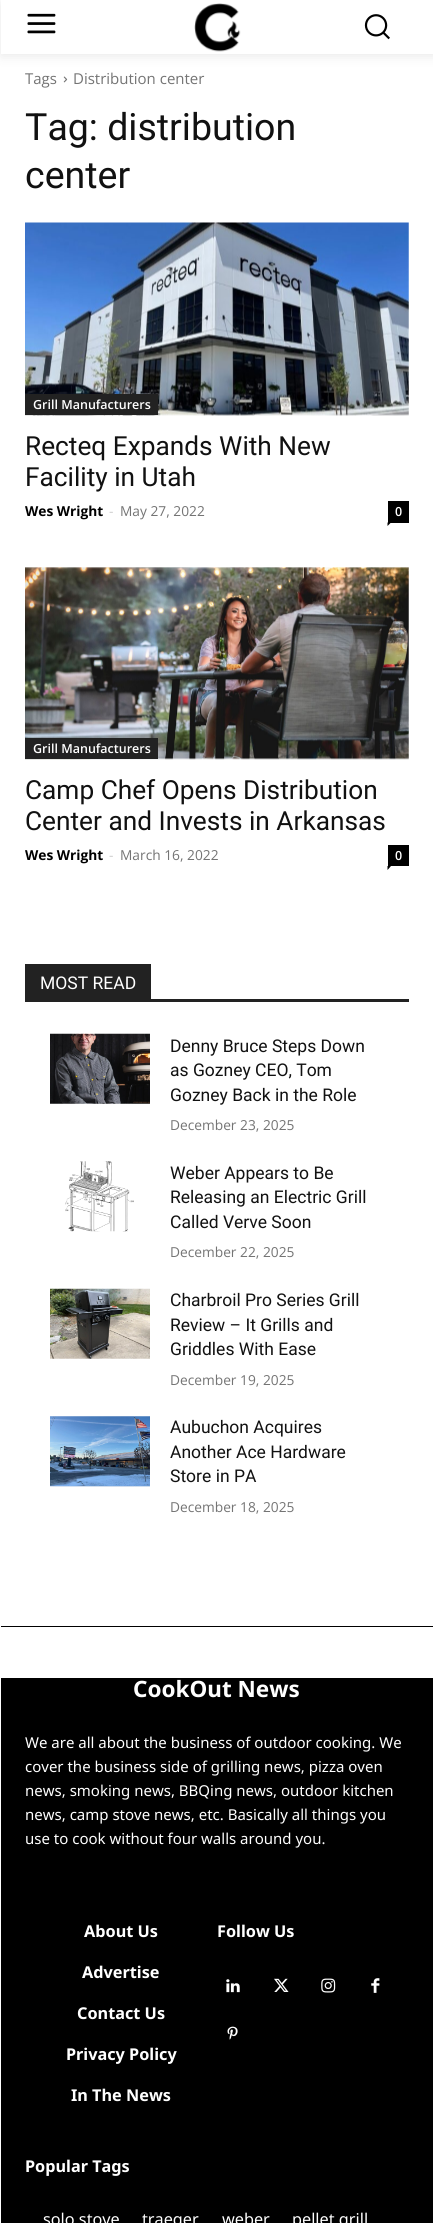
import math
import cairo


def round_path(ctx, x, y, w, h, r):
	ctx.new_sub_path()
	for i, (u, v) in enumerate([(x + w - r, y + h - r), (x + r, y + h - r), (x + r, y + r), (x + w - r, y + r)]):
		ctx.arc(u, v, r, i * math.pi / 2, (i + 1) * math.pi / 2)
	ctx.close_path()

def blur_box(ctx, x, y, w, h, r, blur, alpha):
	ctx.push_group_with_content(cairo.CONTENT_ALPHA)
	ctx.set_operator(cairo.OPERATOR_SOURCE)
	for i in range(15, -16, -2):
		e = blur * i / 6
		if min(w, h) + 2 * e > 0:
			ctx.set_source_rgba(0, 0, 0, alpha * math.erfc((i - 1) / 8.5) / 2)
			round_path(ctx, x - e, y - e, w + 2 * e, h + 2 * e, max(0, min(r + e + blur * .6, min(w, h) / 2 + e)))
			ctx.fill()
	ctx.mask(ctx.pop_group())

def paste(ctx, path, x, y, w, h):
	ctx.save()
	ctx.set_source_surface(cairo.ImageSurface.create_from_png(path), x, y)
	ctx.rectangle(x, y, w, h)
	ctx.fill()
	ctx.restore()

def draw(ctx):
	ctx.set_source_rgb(1, 1, 1)
	ctx.paint()
	paste(ctx, 'media/1.png', 27, 13, 29, 21)
	paste(ctx, 'media/2.png', 194, 3, 47, 49)
	paste(ctx, 'media/3.png', 364, 14, 26, 26)
	ctx.save()
	ctx.set_fill_rule(cairo.FILL_RULE_EVEN_ODD)
	ctx.new_path()
	ctx.move_to(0, 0)
	ctx.line_to(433, 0)
	ctx.line_to(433, 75)
	ctx.line_to(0, 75)
	ctx.close_path()
	ctx.move_to(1, 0)
	ctx.line_to(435, 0)
	ctx.line_to(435, 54)
	ctx.line_to(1, 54)
	ctx.close_path()
	ctx.clip()
	ctx.set_source_rgb(0, 0, 0)
	blur_box(ctx, 1, 3, 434, 53, 0, 6, 0.09)
	ctx.restore()
	ctx.select_font_face('Open Sans')
	ctx.set_font_size(15)
	ctx.set_source_rgb(0.455, 0.455, 0.455)
	ctx.move_to(25, 84)
	ctx.show_text('Tags')
	paste(ctx, 'media/4.png', 63, 76, 5, 7)
	ctx.move_to(73, 84)
	ctx.show_text('Distribution center')
	ctx.select_font_face('Roboto')
	ctx.set_font_size(37.5)
	ctx.set_source_rgb(0.067, 0.067, 0.067)
	ctx.move_to(25, 140)
	ctx.show_text('Tag: distribution')
	ctx.move_to(25, 188)
	ctx.show_text('center')
	paste(ctx, 'media/5.png', 25, 222, 384, 194)
	ctx.set_source_rgb(0.133, 0.133, 0.133)
	ctx.rectangle(25, 394, 133, 21)
	ctx.fill()
	ctx.select_font_face('Open Sans SemiBold')
	ctx.set_font_size(12.5)
	ctx.set_source_rgb(1, 1, 1)
	ctx.move_to(33, 409)
	ctx.show_text('Grill Manufacturers')
	ctx.select_font_face('Roboto')
	ctx.set_font_size(26.25)
	ctx.set_source_rgb(0.067, 0.067, 0.067)
	ctx.move_to(25, 455)
	ctx.show_text('Recteq Expands With New')
	ctx.move_to(25, 486)
	ctx.show_text('Facility in Utah')
	ctx.select_font_face('Open Sans', cairo.FONT_SLANT_NORMAL, cairo.FONT_WEIGHT_BOLD)
	ctx.set_font_size(13.75)
	ctx.set_source_rgb(0, 0, 0)
	ctx.move_to(25, 516)
	ctx.show_text('Wes Wright')
	ctx.select_font_face('Open Sans')
	ctx.set_source_rgb(0.8, 0.8, 0.8)
	ctx.move_to(109, 516)
	ctx.show_text('-')
	ctx.set_source_rgb(0.455, 0.455, 0.455)
	ctx.move_to(120, 516)
	ctx.show_text('May 27, 2022')
	ctx.set_source_rgb(0, 0, 0)
	ctx.rectangle(388, 501, 21, 22)
	ctx.fill()
	ctx.select_font_face('Open Sans SemiBold')
	ctx.set_font_size(12.5)
	ctx.set_source_rgb(1, 1, 1)
	ctx.move_to(395, 516)
	ctx.show_text('0')
	ctx.set_source_rgb(0, 0, 0)
	ctx.new_path()
	ctx.move_to(387.5, 522.5)
	ctx.line_to(391, 522.5)
	ctx.line_to(387.5, 526)
	ctx.close_path()
	ctx.fill()
	paste(ctx, 'media/6.png', 25, 567, 384, 193)
	ctx.set_source_rgb(0.133, 0.133, 0.133)
	ctx.rectangle(25, 738, 133, 21)
	ctx.fill()
	ctx.set_source_rgb(1, 1, 1)
	ctx.move_to(33, 753)
	ctx.show_text('Grill Manufacturers')
	ctx.select_font_face('Roboto')
	ctx.set_font_size(26.25)
	ctx.set_source_rgb(0.067, 0.067, 0.067)
	ctx.move_to(25, 799)
	ctx.show_text('Camp Chef Opens Distribution')
	ctx.move_to(25, 830)
	ctx.show_text('Center and Invests in Arkansas')
	ctx.select_font_face('Open Sans', cairo.FONT_SLANT_NORMAL, cairo.FONT_WEIGHT_BOLD)
	ctx.set_font_size(13.75)
	ctx.set_source_rgb(0, 0, 0)
	ctx.move_to(25, 860)
	ctx.show_text('Wes Wright')
	ctx.select_font_face('Open Sans')
	ctx.set_source_rgb(0.8, 0.8, 0.8)
	ctx.move_to(109, 860)
	ctx.show_text('-')
	ctx.set_source_rgb(0.455, 0.455, 0.455)
	ctx.move_to(120, 860)
	ctx.show_text('March 16, 2022')
	ctx.set_source_rgb(0, 0, 0)
	ctx.rectangle(388, 845, 21, 21)
	ctx.fill()
	ctx.select_font_face('Open Sans SemiBold')
	ctx.set_font_size(12.5)
	ctx.set_source_rgb(1, 1, 1)
	ctx.move_to(395, 860)
	ctx.show_text('0')
	ctx.set_source_rgb(0, 0, 0)
	ctx.new_path()
	ctx.move_to(387.5, 866)
	ctx.line_to(391, 866)
	ctx.line_to(387.5, 870)
	ctx.close_path()
	ctx.fill()
	ctx.set_source_rgb(0.133, 0.133, 0.133)
	ctx.rectangle(25, 999, 384, 3)
	ctx.fill()
	ctx.rectangle(25, 964, 126, 35)
	ctx.fill()
	ctx.select_font_face('Roboto')
	ctx.set_font_size(17.5)
	ctx.set_source_rgb(1, 1, 1)
	ctx.move_to(40, 989)
	ctx.show_text('MOST READ')
	paste(ctx, 'media/7.png', 50, 1033, 100, 71)
	ctx.set_source_rgb(0.067, 0.067, 0.067)
	for x, y, s in [
		(170, 1052, 'Denny Bruce Steps Down'),
		(170, 1076, 'as Gozney CEO, Tom'),
		(170, 1101, 'Gozney Back in the Role'),
	]:
		ctx.move_to(x, y)
		ctx.show_text(s)
	ctx.select_font_face('Open Sans')
	ctx.set_font_size(13.75)
	ctx.set_source_rgb(0.455, 0.455, 0.455)
	ctx.move_to(170, 1130)
	ctx.show_text('December 23, 2025')
	paste(ctx, 'media/8.png', 65, 1161, 69, 71)
	ctx.select_font_face('Roboto')
	ctx.set_font_size(17.5)
	ctx.set_source_rgb(0.067, 0.067, 0.067)
	for x, y, s in [
		(170, 1179, 'Weber Appears to Be'),
		(170, 1203, 'Releasing an Electric Grill'),
		(170, 1228, 'Called Verve Soon'),
	]:
		ctx.move_to(x, y)
		ctx.show_text(s)
	ctx.select_font_face('Open Sans')
	ctx.set_font_size(13.75)
	ctx.set_source_rgb(0.455, 0.455, 0.455)
	ctx.move_to(170, 1257)
	ctx.show_text('December 22, 2025')
	paste(ctx, 'media/9.png', 50, 1288, 100, 71)
	ctx.select_font_face('Roboto')
	ctx.set_font_size(17.5)
	ctx.set_source_rgb(0.067, 0.067, 0.067)
	for x, y, s in [
		(170, 1306, 'Charbroil Pro Series Grill'),
		(170, 1331, 'Review – It Grills and'),
		(170, 1355, 'Griddles With Ease'),
	]:
		ctx.move_to(x, y)
		ctx.show_text(s)
	ctx.select_font_face('Open Sans')
	ctx.set_font_size(13.75)
	ctx.set_source_rgb(0.455, 0.455, 0.455)
	ctx.move_to(170, 1385)
	ctx.show_text('December 19, 2025')
	paste(ctx, 'media/10.png', 50, 1416, 100, 71)
	ctx.select_font_face('Roboto')
	ctx.set_font_size(17.5)
	ctx.set_source_rgb(0.067, 0.067, 0.067)
	for x, y, s in [
		(170, 1433, 'Aubuchon Acquires'),
		(170, 1458, 'Another Ace Hardware'),
		(170, 1482, 'Store in PA'),
	]:
		ctx.move_to(x, y)
		ctx.show_text(s)
	ctx.select_font_face('Open Sans')
	ctx.set_font_size(13.75)
	ctx.set_source_rgb(0.455, 0.455, 0.455)
	ctx.move_to(170, 1512)
	ctx.show_text('December 18, 2025')
	ctx.set_source_rgb(0, 0, 0)
	ctx.rectangle(1, 1626, 432, 1)
	ctx.fill()
	ctx.rectangle(1, 1678, 432, 545)
	ctx.fill()
	ctx.select_font_face('Noto Sans', cairo.FONT_SLANT_NORMAL, cairo.FONT_WEIGHT_BOLD)
	ctx.set_font_size(22.5)
	ctx.set_source_rgb(1, 1, 1)
	ctx.move_to(133, 1697)
	ctx.show_text('CookOut News')
	ctx.select_font_face('Noto Sans')
	ctx.set_font_size(15)
	for x, y, s in [
		(25, 1748, 'We are all about the business of outdoor cooking. We'),
		(25, 1772, 'cover the business side of grilling news, pizza oven'),
		(25, 1796, 'news, smoking news, BBQing news, outdoor kitchen'),
		(25, 1820, 'news, camp stove news, etc. Basically all things you'),
		(25, 1844, 'use to cook without four walls around you.'),
	]:
		ctx.move_to(x, y)
		ctx.show_text(s)
	ctx.select_font_face('Noto Sans', cairo.FONT_SLANT_NORMAL, cairo.FONT_WEIGHT_BOLD)
	ctx.set_font_size(16.25)
	for x, y, s in [
		(84, 1937, 'About Us'),
		(82, 1978, 'Advertise'),
		(77, 2019, 'Contact Us'),
		(66, 2060, 'Privacy Policy'),
		(71, 2101, 'In The News'),
		(217, 1937, 'Follow Us'),
	]:
		ctx.move_to(x, y)
		ctx.show_text(s)
	paste(ctx, 'media/11.png', 226, 1979, 14, 14)
	paste(ctx, 'media/12.png', 274, 1978, 15, 14)
	paste(ctx, 'media/13.png', 321, 1978, 15, 15)
	paste(ctx, 'media/14.png', 371, 1978, 9, 15)
	paste(ctx, 'media/15.png', 227, 2026, 11, 14)
	ctx.move_to(25, 2172)
	ctx.show_text('Popular Tags')
	ctx.select_font_face('Noto Sans')
	for x, y, s in [
		(43, 2225, 'solo stove'),
		(142, 2225, 'traeger'),
		(222, 2225, 'weber'),
		(292, 2225, 'pellet grill'),
	]:
		ctx.move_to(x, y)
		ctx.show_text(s)


surface = cairo.ImageSurface(cairo.FORMAT_RGB24, 433, 2223)
ctx = cairo.Context(surface)
options = cairo.FontOptions()
options.set_hint_metrics(cairo.HINT_METRICS_OFF)
options.set_hint_style(cairo.HINT_STYLE_NONE)
ctx.set_font_options(options)
ctx.set_miter_limit(4)
draw(ctx)
surface.write_to_png('image.png')
